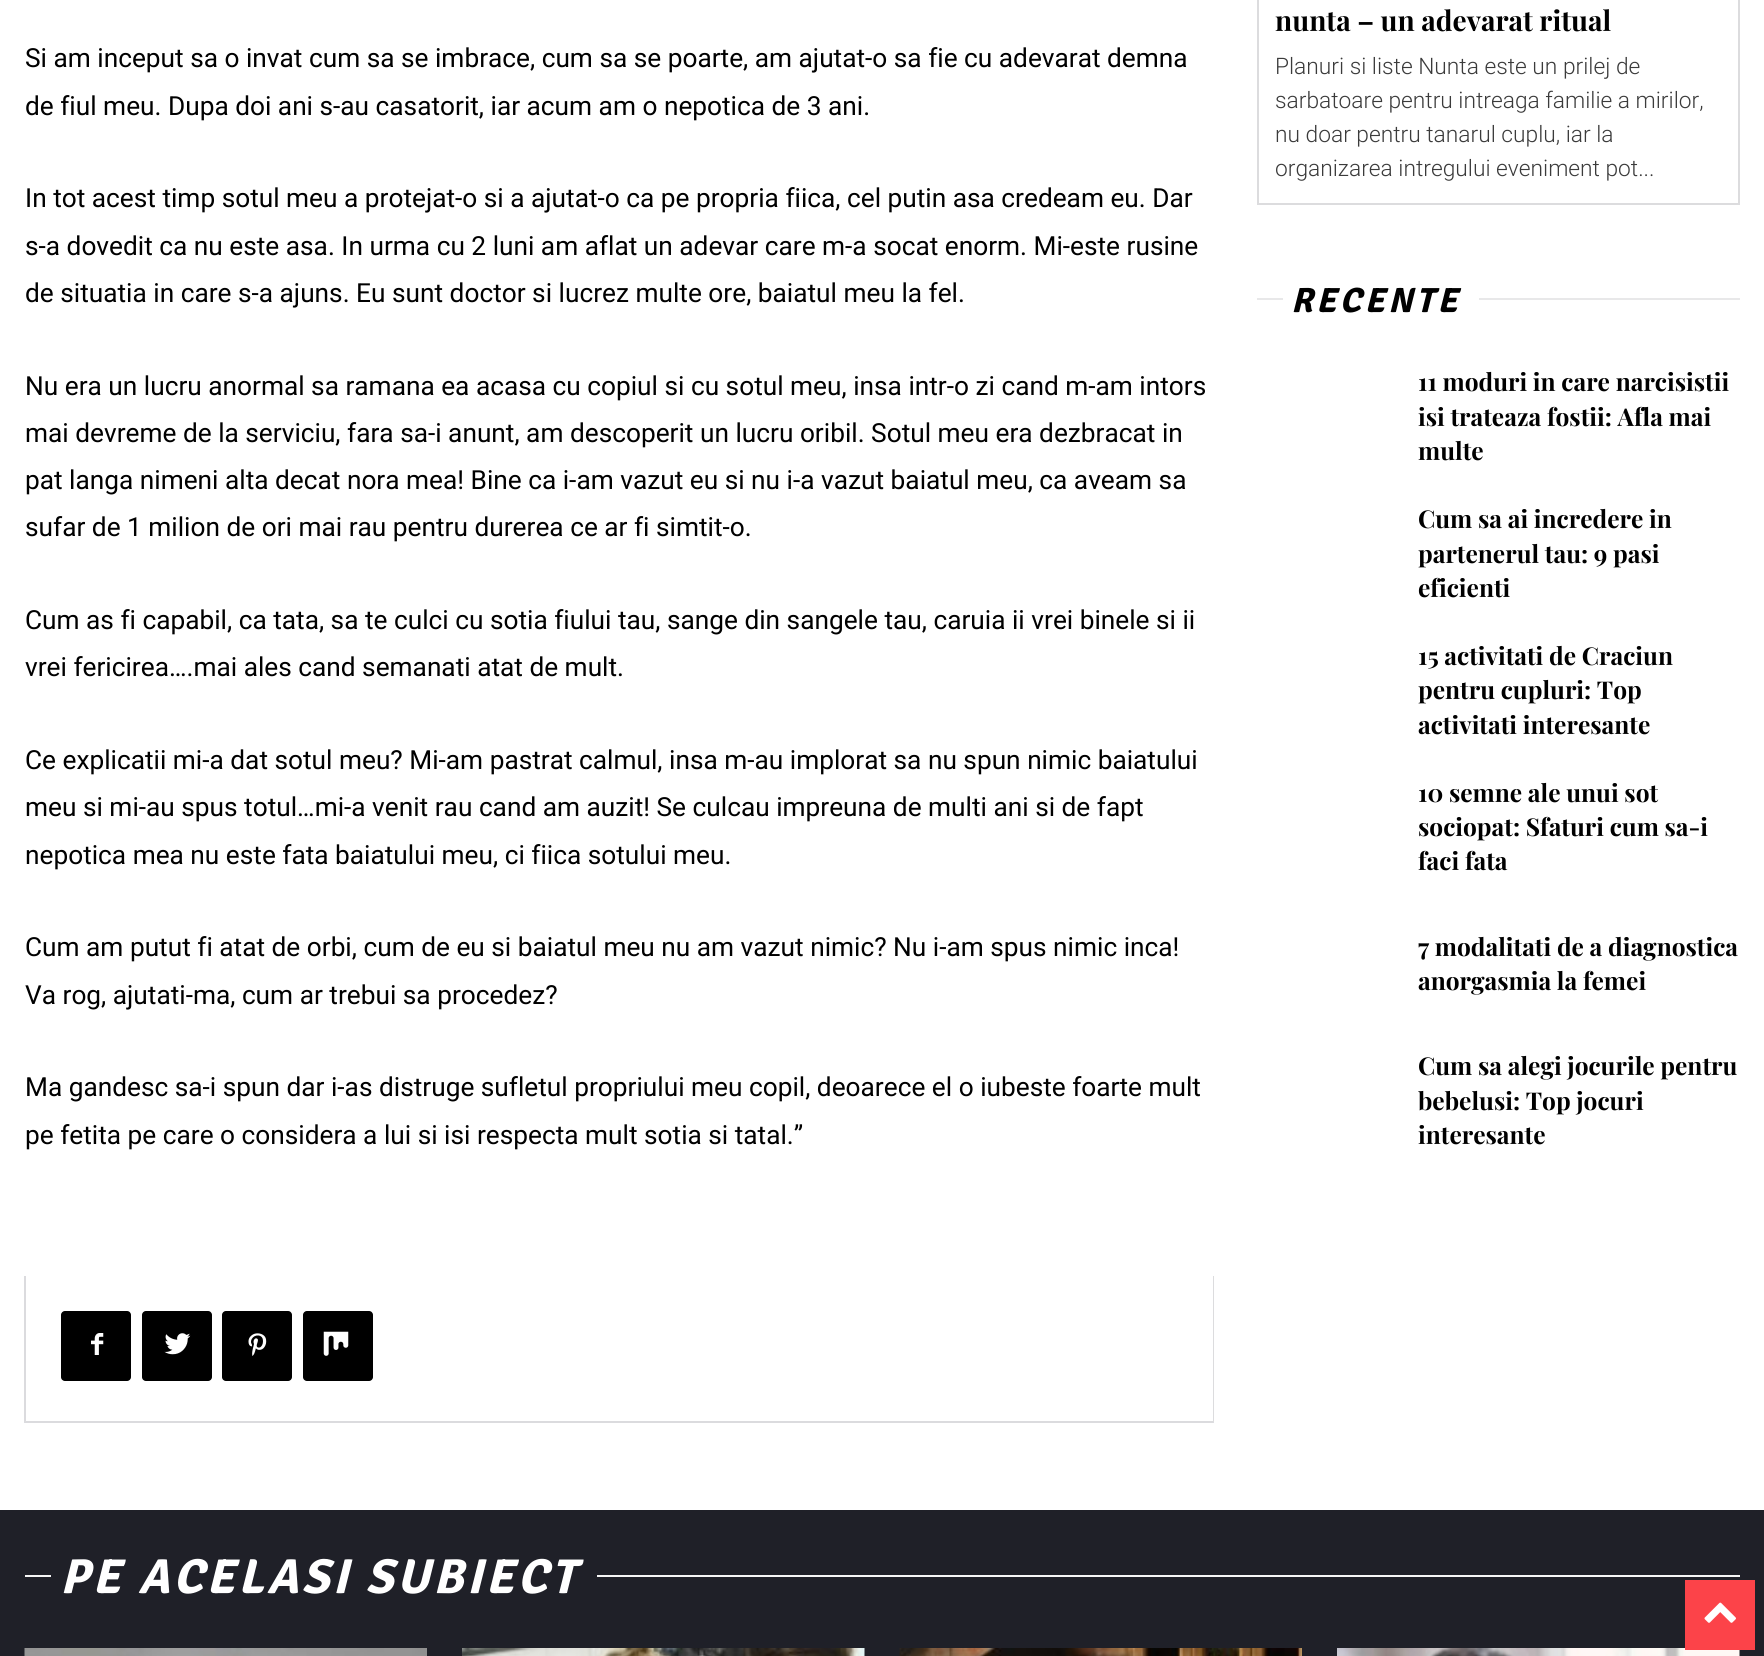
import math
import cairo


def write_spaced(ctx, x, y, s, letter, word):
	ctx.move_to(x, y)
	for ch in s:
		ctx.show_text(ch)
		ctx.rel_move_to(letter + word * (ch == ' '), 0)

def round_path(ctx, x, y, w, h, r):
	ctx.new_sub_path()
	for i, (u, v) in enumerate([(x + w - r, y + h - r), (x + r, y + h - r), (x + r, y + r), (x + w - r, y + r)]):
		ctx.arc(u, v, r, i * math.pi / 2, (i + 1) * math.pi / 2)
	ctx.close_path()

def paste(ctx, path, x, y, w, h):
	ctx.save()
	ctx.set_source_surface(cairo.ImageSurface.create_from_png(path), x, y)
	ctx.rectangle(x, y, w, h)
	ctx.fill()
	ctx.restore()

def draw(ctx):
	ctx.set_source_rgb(1, 1, 1)
	ctx.paint()
	ctx.select_font_face('Roboto')
	ctx.set_font_size(26.25)
	ctx.set_source_rgb(0, 0, 0)
	for x, y, s in [
		(25, 67, 'Si am inceput sa o invat cum sa se imbrace, cum sa se poarte, am ajutat-o sa fie cu adevarat demna'),
		(25, 115, 'de fiul meu. Dupa doi ani s-au casatorit, iar acum am o nepotica de 3 ani.'),
		(25, 207, 'In tot acest timp sotul meu a protejat-o si a ajutat-o ca pe propria fiica, cel putin asa credeam eu. Dar'),
		(25, 255, 's-a dovedit ca nu este asa. In urma cu 2 luni am aflat un adevar care m-a socat enorm. Mi-este rusine'),
		(25, 302, 'de situatia in care s-a ajuns. Eu sunt doctor si lucrez multe ore, baiatul meu la fel.'),
		(25, 395, 'Nu era un lucru anormal sa ramana ea acasa cu copiul si cu sotul meu, insa intr-o zi cand m-am intors'),
		(25, 442, 'mai devreme de la serviciu, fara sa-i anunt, am descoperit un lucru oribil. Sotul meu era dezbracat in'),
		(25, 489, 'pat langa nimeni alta decat nora mea! Bine ca i-am vazut eu si nu i-a vazut baiatul meu, ca aveam sa'),
		(25, 536, 'sufar de 1 milion de ori mai rau pentru durerea ce ar fi simtit-o.'),
		(25, 629, 'Cum as fi capabil, ca tata, sa te culci cu sotia fiului tau, sange din sangele tau, caruia ii vrei binele si ii'),
		(25, 676, 'vrei fericirea….mai ales cand semanati atat de mult.'),
		(25, 769, 'Ce explicatii mi-a dat sotul meu? Mi-am pastrat calmul, insa m-au implorat sa nu spun nimic baiatului'),
		(25, 816, 'meu si mi-au spus totul…mi-a venit rau cand am auzit! Se culcau impreuna de multi ani si de fapt'),
		(25, 864, 'nepotica mea nu este fata baiatului meu, ci fiica sotului meu.'),
		(25, 956, 'Cum am putut fi atat de orbi, cum de eu si baiatul meu nu am vazut nimic? Nu i-am spus nimic inca!'),
		(25, 1004, 'Va rog, ajutati-ma, cum ar trebui sa procedez?'),
		(25, 1096, 'Ma gandesc sa-i spun dar i-as distruge sufletul propriului meu copil, deoarece el o iubeste foarte mult'),
		(25, 1144, 'pe fetita pe care o considera a lui si isi respecta mult sotia si tatal.”'),
	]:
		ctx.move_to(x, y)
		ctx.show_text(s)
	ctx.set_source_rgb(0.863, 0.863, 0.871)
	ctx.new_path()
	ctx.move_to(1214, 1276)
	ctx.line_to(1214, 1423)
	ctx.line_to(1213, 1421)
	ctx.line_to(1213, 1276)
	ctx.close_path()
	ctx.fill()
	ctx.set_source_rgba(0.078, 0.078, 0.137, 0.15)
	ctx.new_path()
	ctx.move_to(1214, 1423)
	ctx.line_to(24, 1423)
	ctx.line_to(26, 1421)
	ctx.line_to(1213, 1421)
	ctx.close_path()
	ctx.fill()
	ctx.new_path()
	ctx.move_to(24, 1423)
	ctx.line_to(24, 1276)
	ctx.line_to(26, 1276)
	ctx.line_to(26, 1421)
	ctx.close_path()
	ctx.fill()
	ctx.set_source_rgb(0, 0, 0)
	round_path(ctx, 61, 1311, 70, 70, 4)
	ctx.fill()
	paste(ctx, 'media/1.png', 91, 1333, 13, 22)
	round_path(ctx, 142, 1311, 70, 70, 4)
	ctx.fill()
	paste(ctx, 'media/2.png', 164, 1333, 27, 22)
	round_path(ctx, 222, 1311, 70, 70, 4)
	ctx.fill()
	paste(ctx, 'media/3.png', 248, 1333, 19, 23)
	round_path(ctx, 303, 1311, 70, 70, 4)
	ctx.fill()
	paste(ctx, 'media/4.png', 323, 1331, 26, 25)
	ctx.set_source_rgb(0.863, 0.863, 0.871)
	ctx.rectangle(1257, 203, 483, 2)
	ctx.rectangle(1738, 0, 2, 203)
	ctx.rectangle(1257, 0, 2, 203)
	ctx.fill()
	ctx.select_font_face('Playfair Display', cairo.FONT_SLANT_NORMAL, cairo.FONT_WEIGHT_BOLD)
	ctx.set_font_size(28)
	ctx.set_source_rgb(0, 0, 0)
	ctx.move_to(1275, 31)
	ctx.show_text('nunta – un adevarat ritual')
	ctx.select_font_face('Roboto Light')
	ctx.set_font_size(22.75)
	ctx.set_source_rgb(0.231, 0.231, 0.231)
	for x, y, s in [
		(1275, 74, 'Planuri si liste Nunta este un prilej de'),
		(1275, 108, 'sarbatoare pentru intreaga familie a mirilor,'),
		(1275, 142, 'nu doar pentru tanarul cuplu, iar la'),
		(1275, 176, 'organizarea intregului eveniment pot...'),
	]:
		ctx.move_to(x, y)
		ctx.show_text(s)
	ctx.set_source_rgb(0.91, 0.91, 0.914)
	ctx.rectangle(1257, 298, 26, 2)
	ctx.fill()
	ctx.select_font_face('Signika Light', cairo.FONT_SLANT_ITALIC)
	ctx.set_font_size(35)
	ctx.set_source_rgb(0, 0, 0)
	write_spaced(ctx, 1291, 312, 'RECENTE', 3.5, 0)
	ctx.set_source_rgb(0.91, 0.91, 0.914)
	ctx.rectangle(1479, 298, 261, 2)
	ctx.fill()
	ctx.select_font_face('Playfair Display', cairo.FONT_SLANT_NORMAL, cairo.FONT_WEIGHT_BOLD)
	ctx.set_font_size(24.5)
	ctx.set_source_rgb(0, 0, 0)
	for x, y, s in [
		(1418, 391, '11 moduri in care narcisistii'),
		(1418, 426, 'isi trateaza fostii: Afla mai'),
		(1418, 460, 'multe'),
		(1418, 528, 'Cum sa ai incredere in'),
		(1418, 563, 'partenerul tau: 9 pasi'),
		(1418, 597, 'eficienti'),
		(1418, 665, '15 activitati de Craciun'),
		(1418, 699, 'pentru cupluri: Top'),
		(1418, 734, 'activitati interesante'),
		(1418, 802, '10 semne ale unui sot'),
		(1418, 836, 'sociopat: Sfaturi cum sa-i'),
		(1418, 870, 'faci fata'),
		(1418, 956, '7 modalitati de a diagnostica'),
		(1418, 990, 'anorgasmia la femei'),
		(1418, 1075, 'Cum sa alegi jocurile pentru'),
		(1418, 1110, 'bebelusi: Top jocuri'),
		(1418, 1144, 'interesante'),
	]:
		ctx.move_to(x, y)
		ctx.show_text(s)
	ctx.set_source_rgb(0.122, 0.125, 0.157)
	ctx.rectangle(0, 1510, 1764, 146)
	ctx.fill()
	ctx.set_source_rgb(0.961, 0.961, 0.961)
	ctx.rectangle(25, 1575, 26, 2)
	ctx.fill()
	ctx.select_font_face('Signika Light', cairo.FONT_SLANT_ITALIC)
	ctx.set_font_size(49)
	ctx.set_source_rgb(1, 1, 1)
	write_spaced(ctx, 60, 1593, 'PE ACELASI SUBIECT', 3.5, 0)
	ctx.set_source_rgb(0.961, 0.961, 0.961)
	ctx.rectangle(597, 1575, 1143, 2)
	ctx.fill()
	paste(ctx, 'media/5.png', 24, 1648, 403, 8)
	paste(ctx, 'media/6.png', 462, 1648, 403, 8)
	paste(ctx, 'media/7.png', 899, 1648, 403, 8)
	paste(ctx, 'media/8.png', 1337, 1648, 403, 8)
	ctx.set_source_rgb(0.988, 0.263, 0.286)
	ctx.rectangle(1685, 1580, 70, 70)
	ctx.fill()
	paste(ctx, 'media/9.png', 1704, 1602, 32, 21)


surface = cairo.ImageSurface(cairo.FORMAT_RGB24, 1764, 1656)
ctx = cairo.Context(surface)
options = cairo.FontOptions()
options.set_hint_metrics(cairo.HINT_METRICS_OFF)
options.set_hint_style(cairo.HINT_STYLE_NONE)
ctx.set_font_options(options)
ctx.set_miter_limit(4)
draw(ctx)
surface.write_to_png('image.png')
